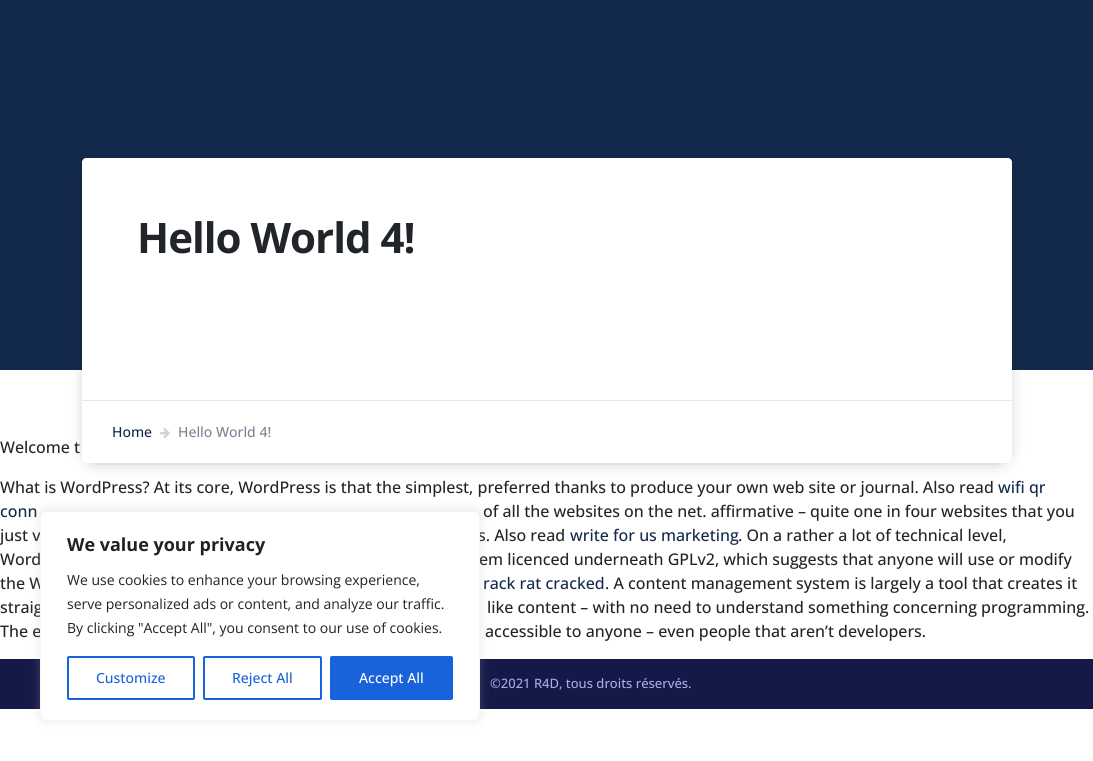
import math
import cairo


def write_spaced(ctx, x, y, s, letter, word):
	ctx.move_to(x, y)
	for ch in s:
		ctx.show_text(ch)
		ctx.rel_move_to(letter + word * (ch == ' '), 0)

def round_path(ctx, x, y, w, h, r):
	ctx.new_sub_path()
	for i, (u, v) in enumerate([(x + w - r, y + h - r), (x + r, y + h - r), (x + r, y + r), (x + w - r, y + r)]):
		ctx.arc(u, v, r, i * math.pi / 2, (i + 1) * math.pi / 2)
	ctx.close_path()

def blur_box(ctx, x, y, w, h, r, blur, alpha):
	ctx.push_group_with_content(cairo.CONTENT_ALPHA)
	ctx.set_operator(cairo.OPERATOR_SOURCE)
	for i in range(15, -16, -2):
		e = blur * i / 6
		if min(w, h) + 2 * e > 0:
			ctx.set_source_rgba(0, 0, 0, alpha * math.erfc((i - 1) / 8.5) / 2)
			round_path(ctx, x - e, y - e, w + 2 * e, h + 2 * e, max(0, min(r + e + blur * .6, min(w, h) / 2 + e)))
			ctx.fill()
	ctx.mask(ctx.pop_group())

def paste(ctx, path, x, y, w, h):
	ctx.save()
	ctx.set_source_surface(cairo.ImageSurface.create_from_png(path), x, y)
	ctx.rectangle(x, y, w, h)
	ctx.fill()
	ctx.restore()

def draw(ctx):
	ctx.set_source_rgb(1, 1, 1)
	ctx.paint()
	ctx.set_source_rgb(0.075, 0.161, 0.294)
	ctx.rectangle(0, 0, 1093, 370)
	ctx.fill()
	ctx.set_source_rgb(0, 0, 0)
	blur_box(ctx, 95, 174, 904, 279, 0, 10.5, 0.75)
	ctx.set_source_rgb(1, 1, 1)
	ctx.new_path()
	ctx.move_to(86, 158)
	ctx.line_to(1008, 158)
	ctx.curve_to(1010, 158, 1012, 160, 1012, 162)
	ctx.line_to(1012, 400)
	ctx.line_to(82, 400)
	ctx.line_to(82, 162)
	ctx.curve_to(82, 160, 84, 158, 86, 158)
	ctx.close_path()
	ctx.fill()
	ctx.select_font_face('Open Sans', cairo.FONT_SLANT_NORMAL, cairo.FONT_WEIGHT_BOLD)
	ctx.set_font_size(42)
	ctx.set_source_rgb(0.129, 0.145, 0.161)
	write_spaced(ctx, 137, 253, 'Hello World 4!', -1, 0)
	ctx.set_source_rgb(1, 1, 1)
	ctx.new_path()
	ctx.move_to(82, 400)
	ctx.line_to(1012, 400)
	ctx.line_to(1012, 458)
	ctx.curve_to(1012, 461, 1010, 463, 1007, 463)
	ctx.line_to(87, 463)
	ctx.curve_to(84, 463, 82, 461, 82, 458)
	ctx.close_path()
	ctx.fill()
	ctx.set_source_rgb(0.906, 0.906, 0.937)
	ctx.rectangle(82, 400, 930, 1)
	ctx.fill()
	ctx.select_font_face('Open Sans Medium')
	ctx.set_font_size(14)
	ctx.set_source_rgb(0.075, 0.161, 0.294)
	ctx.move_to(112, 437)
	ctx.show_text('Home')
	paste(ctx, 'media/1.png', 160, 428, 10, 11)
	ctx.set_source_rgb(0.502, 0.51, 0.58)
	ctx.move_to(178, 437)
	ctx.show_text('Hello World 4!')
	ctx.set_font_size(16)
	ctx.set_source_rgb(0.129, 0.145, 0.161)
	ctx.move_to(0, 453)
	ctx.show_text('Welcome t')
	ctx.move_to(0, 493)
	ctx.show_text('What is WordPress? At its core, WordPress is that the simplest, preferred thanks to produce your own web site or journal. Also read')
	ctx.set_source_rgb(0.075, 0.161, 0.294)
	ctx.move_to(998, 493)
	ctx.show_text('wifi qr')
	ctx.move_to(0, 517)
	ctx.show_text('conn')
	ctx.set_source_rgb(0.129, 0.145, 0.161)
	for x, y, s in [
		(483, 517, 'of all the websites on the net. affirmative – quite one in four websites that you'),
		(0, 541, 'just v'),
		(478, 541, 's. Also read'),
	]:
		ctx.move_to(x, y)
		ctx.show_text(s)
	ctx.set_source_rgb(0.075, 0.161, 0.294)
	ctx.move_to(570, 541)
	ctx.show_text('write for us marketing')
	ctx.set_source_rgb(0.129, 0.145, 0.161)
	for x, y, s in [
		(738, 541, '. On a rather a lot of technical level,'),
		(0, 565, 'Word'),
		(479, 565, 'em licenced underneath GPLv2, which suggests that anyone will use or modify'),
		(0, 589, 'the W'),
	]:
		ctx.move_to(x, y)
		ctx.show_text(s)
	ctx.set_source_rgb(0.075, 0.161, 0.294)
	ctx.move_to(483, 589)
	ctx.show_text('rack rat cracked')
	ctx.set_source_rgb(0.129, 0.145, 0.161)
	for x, y, s in [
		(605, 589, '. A content management system is largely a tool that creates it'),
		(0, 613, 'straig'),
		(487, 613, 'like content – with no need to understand something concerning programming.'),
		(0, 637, 'The e'),
		(485, 637, 'accessible to anyone – even people that aren’t developers.'),
	]:
		ctx.move_to(x, y)
		ctx.show_text(s)
	ctx.set_source_rgb(0.082, 0.098, 0.278)
	ctx.rectangle(0, 659, 1093, 50)
	ctx.fill()
	ctx.set_font_size(13)
	ctx.set_source_rgb(0.655, 0.678, 0.894)
	ctx.move_to(490, 688)
	ctx.show_text('©2021 R4D, tous droits réservés.')
	ctx.set_source_rgb(0.675, 0.671, 0.671)
	blur_box(ctx, 40, 510, 440, 210, 6, 5, 0.3)
	ctx.set_source_rgb(1, 1, 1)
	round_path(ctx, 40.5, 511.5, 439, 209, 5.5)
	ctx.fill_preserve()
	ctx.set_source_rgb(0.957, 0.957, 0.957)
	ctx.set_line_width(1)
	ctx.stroke()
	ctx.select_font_face('Open Sans', cairo.FONT_SLANT_NORMAL, cairo.FONT_WEIGHT_BOLD)
	ctx.set_font_size(18)
	ctx.set_source_rgb(0.129, 0.129, 0.129)
	ctx.move_to(67, 551)
	ctx.show_text('We value your privacy')
	ctx.select_font_face('Open Sans')
	ctx.set_font_size(14)
	for x, y, s in [
		(67, 585, 'We use cookies to enhance your browsing experience,'),
		(67, 609, 'serve personalized ads or content, and analyze our traffic.'),
		(67, 633, 'By clicking "Accept All", you consent to our use of cookies.'),
	]:
		ctx.move_to(x, y)
		ctx.show_text(s)
	round_path(ctx, 68, 657, 126, 42, 1)
	ctx.set_source_rgb(0.094, 0.388, 0.863)
	ctx.set_line_width(2)
	ctx.stroke()
	ctx.select_font_face('Open Sans Medium')
	ctx.move_to(96, 683)
	ctx.show_text('Customize')
	round_path(ctx, 204, 657, 117, 42, 1)
	ctx.stroke()
	ctx.move_to(232, 683)
	ctx.show_text('Reject All')
	round_path(ctx, 331, 657, 121, 42, 1)
	ctx.fill_preserve()
	ctx.stroke()
	ctx.set_source_rgb(1, 1, 1)
	ctx.move_to(359, 683)
	ctx.show_text('Accept All')


surface = cairo.ImageSurface(cairo.FORMAT_RGB24, 1093, 761)
ctx = cairo.Context(surface)
options = cairo.FontOptions()
options.set_hint_metrics(cairo.HINT_METRICS_OFF)
options.set_hint_style(cairo.HINT_STYLE_NONE)
ctx.set_font_options(options)
ctx.set_miter_limit(4)
draw(ctx)
surface.write_to_png('image.png')
